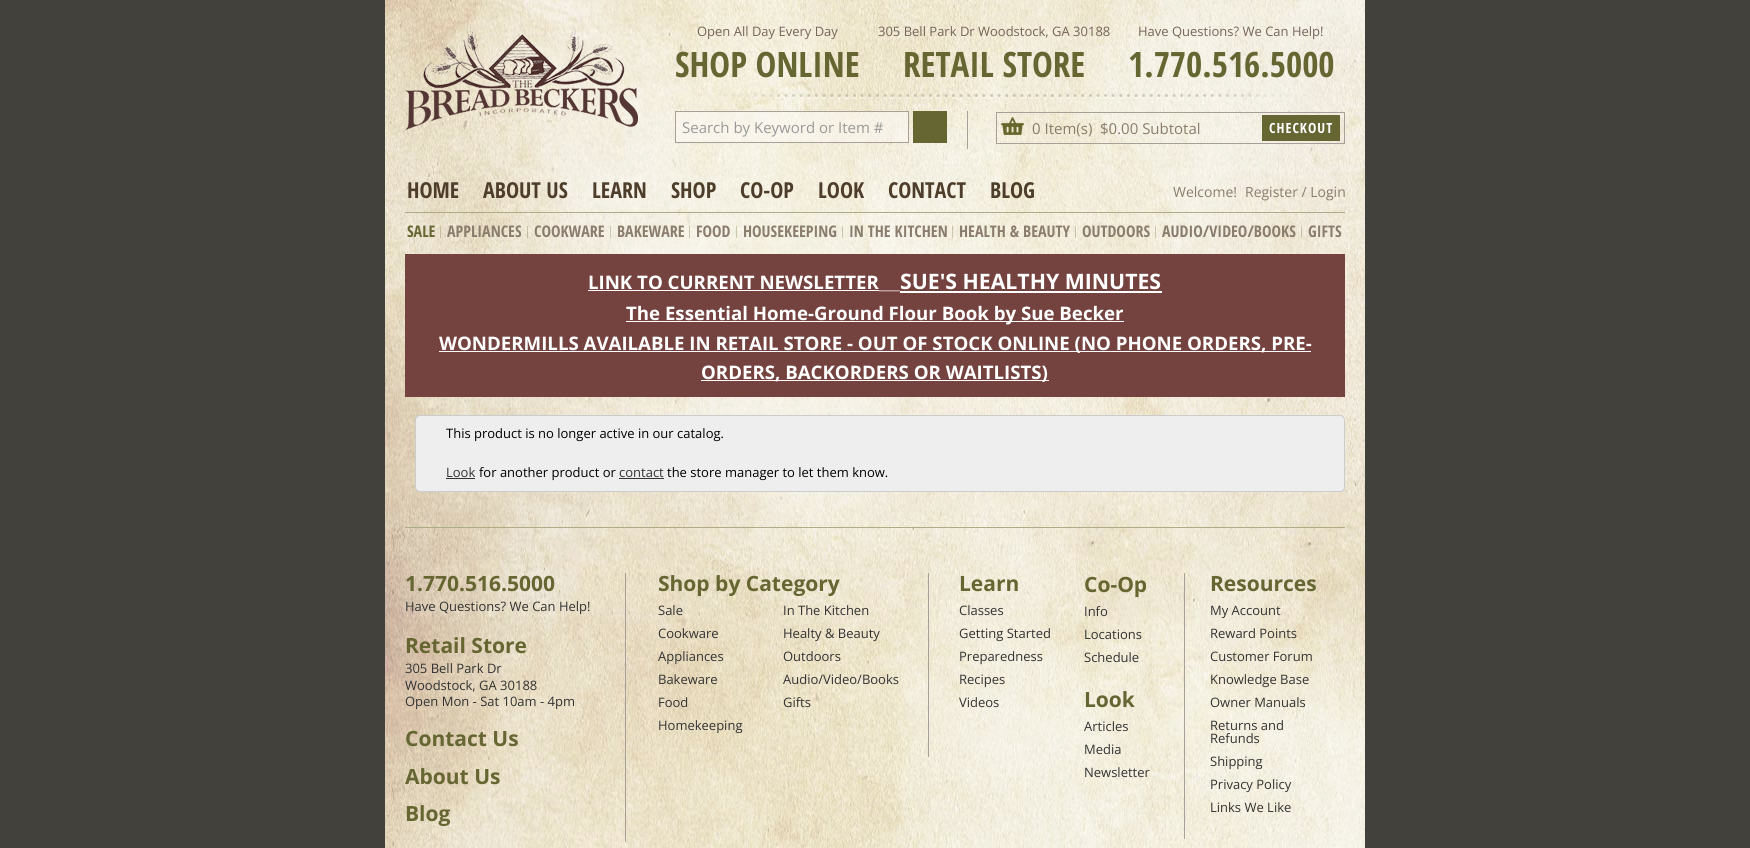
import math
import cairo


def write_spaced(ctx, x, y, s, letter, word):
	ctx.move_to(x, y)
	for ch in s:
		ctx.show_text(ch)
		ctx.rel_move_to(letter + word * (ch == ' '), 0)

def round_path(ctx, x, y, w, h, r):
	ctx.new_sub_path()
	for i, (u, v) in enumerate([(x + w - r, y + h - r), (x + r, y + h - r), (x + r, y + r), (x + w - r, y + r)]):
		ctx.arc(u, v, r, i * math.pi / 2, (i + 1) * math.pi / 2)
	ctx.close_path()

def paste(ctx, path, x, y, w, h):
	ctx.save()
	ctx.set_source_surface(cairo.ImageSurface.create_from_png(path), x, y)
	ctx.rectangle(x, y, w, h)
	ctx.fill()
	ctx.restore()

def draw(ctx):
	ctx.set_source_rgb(0.259, 0.255, 0.235)
	ctx.paint()
	paste(ctx, 'media/1.png', 385, 0, 980, 848)
	paste(ctx, 'media/2.png', 405, 30, 233, 100)
	paste(ctx, 'media/3.png', 716, 94, 589, 5)
	ctx.select_font_face('Open Sans')
	ctx.set_font_size(13)
	ctx.set_source_rgb(0.463, 0.392, 0.353)
	ctx.move_to(697, 36)
	ctx.show_text('Open All Day Every Day')
	ctx.select_font_face('Open Sans Condensed', cairo.FONT_SLANT_NORMAL, cairo.FONT_WEIGHT_BOLD)
	ctx.set_font_size(35)
	ctx.set_source_rgb(0.4, 0.4, 0.2)
	ctx.move_to(675, 77)
	ctx.show_text('SHOP ONLINE')
	ctx.select_font_face('Open Sans')
	ctx.set_font_size(13)
	ctx.set_source_rgb(0.463, 0.392, 0.353)
	ctx.move_to(878, 36)
	ctx.show_text('305 Bell Park Dr Woodstock, GA 30188')
	ctx.select_font_face('Open Sans Condensed', cairo.FONT_SLANT_NORMAL, cairo.FONT_WEIGHT_BOLD)
	ctx.set_font_size(35)
	ctx.set_source_rgb(0.4, 0.4, 0.2)
	ctx.move_to(903, 77)
	ctx.show_text('RETAIL STORE')
	ctx.select_font_face('Open Sans')
	ctx.set_font_size(13)
	ctx.set_source_rgb(0.463, 0.392, 0.353)
	ctx.move_to(1138, 36)
	ctx.show_text('Have Questions? We Can Help!')
	ctx.select_font_face('Open Sans Condensed', cairo.FONT_SLANT_NORMAL, cairo.FONT_WEIGHT_BOLD)
	ctx.set_font_size(35)
	ctx.set_source_rgb(0.4, 0.4, 0.2)
	ctx.move_to(1128, 77)
	ctx.show_text('1.770.516.5000')
	ctx.set_source_rgb(0.659, 0.624, 0.596)
	ctx.rectangle(967, 111, 1, 38)
	ctx.fill()
	ctx.set_source_rgba(0.984, 0.973, 0.957, 0.6)
	ctx.rectangle(675.5, 111.5, 233, 31)
	ctx.fill_preserve()
	ctx.set_source_rgb(0.659, 0.624, 0.596)
	ctx.set_line_width(1)
	ctx.stroke()
	ctx.select_font_face('Open Sans')
	ctx.set_font_size(15)
	ctx.set_source_rgb(0.6, 0.6, 0.6)
	ctx.move_to(682, 133)
	ctx.show_text('Search by Keyword or Item #')
	ctx.set_source_rgb(0.4, 0.4, 0.2)
	ctx.rectangle(913, 111, 34, 32)
	ctx.fill()
	paste(ctx, 'media/4.png', 1001, 117, 23, 18)
	ctx.rectangle(996.5, 112.5, 348, 31)
	ctx.set_source_rgb(0.659, 0.624, 0.596)
	ctx.stroke()
	ctx.set_source_rgb(0.545, 0.49, 0.427)
	ctx.move_to(1032, 134)
	ctx.show_text('0 Item(s)')
	ctx.move_to(1100, 134)
	ctx.show_text('$0.00 Subtotal')
	ctx.set_source_rgb(0.4, 0.4, 0.2)
	ctx.rectangle(1262, 115, 78, 26)
	ctx.fill()
	ctx.select_font_face('Open Sans Condensed', cairo.FONT_SLANT_NORMAL, cairo.FONT_WEIGHT_BOLD)
	ctx.set_font_size(14)
	ctx.set_source_rgb(1, 1, 1)
	write_spaced(ctx, 1269, 133, 'CHECKOUT', 1, 0)
	ctx.set_font_size(22)
	ctx.set_source_rgb(0.306, 0.239, 0.165)
	for x, y, s in [
		(407, 198, 'HOME'),
		(483, 198, 'ABOUT US'),
		(592, 198, 'LEARN'),
		(671, 198, 'SHOP'),
		(740, 198, 'CO-OP'),
		(818, 198, 'LOOK'),
		(888, 198, 'CONTACT'),
		(990, 198, 'BLOG'),
	]:
		ctx.move_to(x, y)
		ctx.show_text(s)
	ctx.select_font_face('Open Sans')
	ctx.set_font_size(14)
	ctx.set_source_rgb(0.545, 0.49, 0.427)
	ctx.move_to(1173, 197)
	ctx.show_text('Welcome!')
	ctx.move_to(1245, 197)
	ctx.show_text('Register / Login')
	ctx.set_source_rgb(0.69, 0.671, 0.529)
	ctx.rectangle(405, 212, 940, 1)
	ctx.fill()
	ctx.select_font_face('Open Sans Condensed', cairo.FONT_SLANT_NORMAL, cairo.FONT_WEIGHT_BOLD)
	ctx.set_font_size(16)
	ctx.set_source_rgb(0.4, 0.4, 0.2)
	ctx.move_to(407, 237)
	ctx.show_text('SALE')
	ctx.set_source_rgba(0.404, 0.404, 0.169, 0.3)
	ctx.rectangle(440, 226, 1, 12)
	ctx.fill()
	ctx.set_source_rgb(0.545, 0.49, 0.427)
	ctx.move_to(447, 237)
	ctx.show_text('APPLIANCES')
	ctx.set_source_rgba(0.404, 0.404, 0.169, 0.3)
	ctx.rectangle(527, 226, 1, 12)
	ctx.fill()
	ctx.set_source_rgb(0.545, 0.49, 0.427)
	ctx.move_to(534, 237)
	ctx.show_text('COOKWARE')
	ctx.set_source_rgba(0.404, 0.404, 0.169, 0.3)
	ctx.rectangle(610, 226, 1, 12)
	ctx.fill()
	ctx.set_source_rgb(0.545, 0.49, 0.427)
	ctx.move_to(617, 237)
	ctx.show_text('BAKEWARE')
	ctx.set_source_rgba(0.404, 0.404, 0.169, 0.3)
	ctx.rectangle(689, 226, 1, 12)
	ctx.fill()
	ctx.set_source_rgb(0.545, 0.49, 0.427)
	ctx.move_to(696, 237)
	ctx.show_text('FOOD')
	ctx.set_source_rgba(0.404, 0.404, 0.169, 0.3)
	ctx.rectangle(736, 226, 1, 12)
	ctx.fill()
	ctx.set_source_rgb(0.545, 0.49, 0.427)
	ctx.move_to(743, 237)
	ctx.show_text('HOUSEKEEPING')
	ctx.set_source_rgba(0.404, 0.404, 0.169, 0.3)
	ctx.rectangle(842, 226, 1, 12)
	ctx.fill()
	ctx.set_source_rgb(0.545, 0.49, 0.427)
	ctx.move_to(849, 237)
	ctx.show_text('IN THE KITCHEN')
	ctx.set_source_rgba(0.404, 0.404, 0.169, 0.3)
	ctx.rectangle(952, 226, 1, 12)
	ctx.fill()
	ctx.set_source_rgb(0.545, 0.49, 0.427)
	ctx.move_to(959, 237)
	ctx.show_text('HEALTH & BEAUTY')
	ctx.set_source_rgba(0.404, 0.404, 0.169, 0.3)
	ctx.rectangle(1075, 226, 1, 12)
	ctx.fill()
	ctx.set_source_rgb(0.545, 0.49, 0.427)
	ctx.move_to(1082, 237)
	ctx.show_text('OUTDOORS')
	ctx.set_source_rgba(0.404, 0.404, 0.169, 0.3)
	ctx.rectangle(1155, 226, 1, 12)
	ctx.fill()
	ctx.set_source_rgb(0.545, 0.49, 0.427)
	ctx.move_to(1162, 237)
	ctx.show_text('AUDIO/VIDEO/BOOKS')
	ctx.set_source_rgba(0.404, 0.404, 0.169, 0.3)
	ctx.rectangle(1301, 226, 1, 12)
	ctx.fill()
	ctx.set_source_rgb(0.545, 0.49, 0.427)
	ctx.move_to(1308, 237)
	ctx.show_text('GIFTS')
	ctx.set_source_rgb(0.455, 0.263, 0.247)
	ctx.rectangle(405, 254, 940, 143)
	ctx.fill()
	ctx.select_font_face('Open Sans', cairo.FONT_SLANT_NORMAL, cairo.FONT_WEIGHT_BOLD)
	ctx.set_font_size(18.65)
	ctx.set_source_rgb(1, 1, 1)
	ctx.move_to(588, 289)
	ctx.show_text('LINK TO CURRENT NEWSLETTER')
	ctx.rectangle(588, 290, 291, 1)
	ctx.fill()
	ctx.set_font_size(21.25)
	ctx.move_to(900, 289)
	ctx.show_text('SUE\'S HEALTHY MINUTES')
	ctx.rectangle(900, 291, 262, 2)
	ctx.fill()
	ctx.select_font_face('Open Sans Light')
	ctx.set_font_size(17)
	ctx.move_to(879, 289)
	ctx.show_text('___')
	ctx.rectangle(626, 321, 498, 1)
	ctx.fill()
	ctx.select_font_face('Open Sans', cairo.FONT_SLANT_NORMAL, cairo.FONT_WEIGHT_BOLD)
	ctx.set_font_size(18.65)
	ctx.move_to(626, 320)
	ctx.show_text('The Essential Home-Ground Flour Book by Sue Becker')
	ctx.rectangle(439, 351, 872, 1)
	ctx.fill()
	ctx.move_to(439, 350)
	ctx.show_text('WONDERMILLS AVAILABLE IN RETAIL STORE - OUT OF STOCK ONLINE (NO PHONE ORDERS, PRE-')
	ctx.rectangle(701, 380, 348, 1)
	ctx.fill()
	ctx.move_to(701, 379)
	ctx.show_text('ORDERS, BACKORDERS OR WAITLISTS)')
	ctx.set_source_rgb(0.933, 0.933, 0.933)
	round_path(ctx, 415.5, 415.5, 929, 76, 4.5)
	ctx.fill_preserve()
	ctx.set_source_rgb(0.8, 0.8, 0.8)
	ctx.stroke()
	ctx.select_font_face('Open Sans')
	ctx.set_font_size(13)
	ctx.set_source_rgb(0, 0, 0)
	ctx.move_to(446, 438)
	ctx.show_text('This product is no longer active in our catalog.')
	ctx.set_source_rgb(0.2, 0.2, 0.2)
	ctx.move_to(446, 477)
	ctx.show_text('Look')
	ctx.rectangle(446, 478, 29, 1)
	ctx.fill()
	ctx.set_source_rgb(0, 0, 0)
	ctx.move_to(479, 477)
	ctx.show_text('for another product or')
	ctx.set_source_rgb(0.2, 0.2, 0.2)
	ctx.move_to(619, 477)
	ctx.show_text('contact')
	ctx.rectangle(619, 478, 45, 1)
	ctx.fill()
	ctx.set_source_rgb(0, 0, 0)
	ctx.move_to(667, 477)
	ctx.show_text('the store manager to let them know.')
	ctx.set_source_rgb(0.69, 0.671, 0.529)
	ctx.rectangle(405, 527, 940, 1)
	ctx.fill()
	ctx.set_source_rgb(0.659, 0.624, 0.596)
	ctx.rectangle(625, 573, 1, 269)
	ctx.fill()
	ctx.select_font_face('Open Sans', cairo.FONT_SLANT_NORMAL, cairo.FONT_WEIGHT_BOLD)
	ctx.set_font_size(21)
	ctx.set_source_rgb(0.4, 0.4, 0.2)
	ctx.move_to(405, 591)
	ctx.show_text('1.770.516.5000')
	ctx.select_font_face('Open Sans')
	ctx.set_font_size(13)
	ctx.set_source_rgb(0.2, 0.2, 0.2)
	ctx.move_to(405, 611)
	ctx.show_text('Have Questions? We Can Help!')
	ctx.select_font_face('Open Sans', cairo.FONT_SLANT_NORMAL, cairo.FONT_WEIGHT_BOLD)
	ctx.set_font_size(21)
	ctx.set_source_rgb(0.4, 0.4, 0.2)
	ctx.move_to(405, 653)
	ctx.show_text('Retail Store')
	ctx.select_font_face('Open Sans')
	ctx.set_font_size(13)
	ctx.set_source_rgb(0.2, 0.2, 0.2)
	for x, y, s in [
		(405, 673, '305 Bell Park Dr'),
		(405, 690, 'Woodstock, GA 30188'),
		(405, 706, 'Open Mon - Sat 10am - 4pm'),
	]:
		ctx.move_to(x, y)
		ctx.show_text(s)
	ctx.select_font_face('Open Sans', cairo.FONT_SLANT_NORMAL, cairo.FONT_WEIGHT_BOLD)
	ctx.set_font_size(21)
	ctx.set_source_rgb(0.4, 0.4, 0.2)
	for x, y, s in [
		(405, 746, 'Contact Us'),
		(405, 784, 'About Us'),
		(405, 821, 'Blog'),
	]:
		ctx.move_to(x, y)
		ctx.show_text(s)
	ctx.set_source_rgb(0.659, 0.624, 0.596)
	ctx.rectangle(928, 573, 1, 184)
	ctx.fill()
	ctx.set_source_rgb(0.4, 0.4, 0.2)
	ctx.move_to(658, 591)
	ctx.show_text('Shop by Category')
	ctx.select_font_face('Open Sans')
	ctx.set_font_size(13)
	ctx.set_source_rgb(0.2, 0.2, 0.2)
	for x, y, s in [
		(658, 615, 'Sale'),
		(658, 638, 'Cookware'),
		(658, 661, 'Appliances'),
		(658, 684, 'Bakeware'),
		(658, 707, 'Food'),
		(658, 730, 'Homekeeping'),
		(783, 615, 'In The Kitchen'),
		(783, 638, 'Healty & Beauty'),
		(783, 661, 'Outdoors'),
		(783, 684, 'Audio/Video/Books'),
		(783, 707, 'Gifts'),
	]:
		ctx.move_to(x, y)
		ctx.show_text(s)
	ctx.set_source_rgb(0.659, 0.624, 0.596)
	ctx.rectangle(1184, 573, 1, 266)
	ctx.fill()
	ctx.select_font_face('Open Sans', cairo.FONT_SLANT_NORMAL, cairo.FONT_WEIGHT_BOLD)
	ctx.set_font_size(21)
	ctx.set_source_rgb(0.4, 0.4, 0.2)
	ctx.move_to(959, 591)
	ctx.show_text('Learn')
	ctx.move_to(1084, 592)
	ctx.show_text('Co-Op')
	ctx.select_font_face('Open Sans')
	ctx.set_font_size(13)
	ctx.set_source_rgb(0.2, 0.2, 0.2)
	for x, y, s in [
		(1084, 616, 'Info'),
		(1084, 639, 'Locations'),
		(1084, 662, 'Schedule'),
	]:
		ctx.move_to(x, y)
		ctx.show_text(s)
	ctx.select_font_face('Open Sans', cairo.FONT_SLANT_NORMAL, cairo.FONT_WEIGHT_BOLD)
	ctx.set_font_size(21)
	ctx.set_source_rgb(0.4, 0.4, 0.2)
	ctx.move_to(1084, 707)
	ctx.show_text('Look')
	ctx.select_font_face('Open Sans')
	ctx.set_font_size(13)
	ctx.set_source_rgb(0.2, 0.2, 0.2)
	for x, y, s in [
		(1084, 731, 'Articles'),
		(1084, 754, 'Media'),
		(1084, 777, 'Newsletter'),
		(959, 615, 'Classes'),
		(959, 638, 'Getting Started'),
		(959, 661, 'Preparedness'),
		(959, 684, 'Recipes'),
		(959, 707, 'Videos'),
	]:
		ctx.move_to(x, y)
		ctx.show_text(s)
	ctx.select_font_face('Open Sans', cairo.FONT_SLANT_NORMAL, cairo.FONT_WEIGHT_BOLD)
	ctx.set_font_size(21)
	ctx.set_source_rgb(0.4, 0.4, 0.2)
	ctx.move_to(1210, 591)
	ctx.show_text('Resources')
	ctx.select_font_face('Open Sans')
	ctx.set_font_size(13)
	ctx.set_source_rgb(0.2, 0.2, 0.2)
	for x, y, s in [
		(1210, 615, 'My Account'),
		(1210, 638, 'Reward Points'),
		(1210, 661, 'Customer Forum'),
		(1210, 684, 'Knowledge Base'),
		(1210, 707, 'Owner Manuals'),
		(1210, 730, 'Returns and'),
		(1210, 743, 'Refunds'),
		(1210, 766, 'Shipping'),
		(1210, 789, 'Privacy Policy'),
		(1210, 812, 'Links We Like'),
	]:
		ctx.move_to(x, y)
		ctx.show_text(s)


surface = cairo.ImageSurface(cairo.FORMAT_RGB24, 1750, 848)
ctx = cairo.Context(surface)
options = cairo.FontOptions()
options.set_hint_metrics(cairo.HINT_METRICS_OFF)
options.set_hint_style(cairo.HINT_STYLE_NONE)
ctx.set_font_options(options)
ctx.set_miter_limit(4)
draw(ctx)
surface.write_to_png('image.png')
